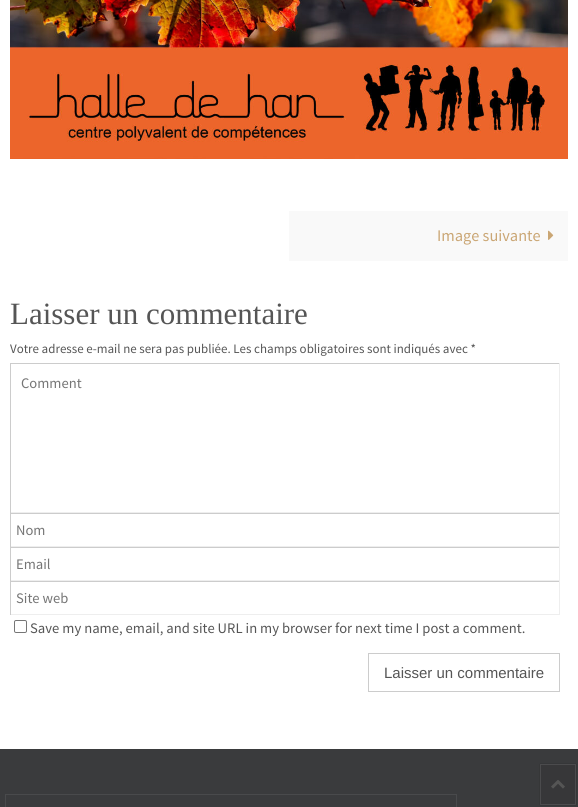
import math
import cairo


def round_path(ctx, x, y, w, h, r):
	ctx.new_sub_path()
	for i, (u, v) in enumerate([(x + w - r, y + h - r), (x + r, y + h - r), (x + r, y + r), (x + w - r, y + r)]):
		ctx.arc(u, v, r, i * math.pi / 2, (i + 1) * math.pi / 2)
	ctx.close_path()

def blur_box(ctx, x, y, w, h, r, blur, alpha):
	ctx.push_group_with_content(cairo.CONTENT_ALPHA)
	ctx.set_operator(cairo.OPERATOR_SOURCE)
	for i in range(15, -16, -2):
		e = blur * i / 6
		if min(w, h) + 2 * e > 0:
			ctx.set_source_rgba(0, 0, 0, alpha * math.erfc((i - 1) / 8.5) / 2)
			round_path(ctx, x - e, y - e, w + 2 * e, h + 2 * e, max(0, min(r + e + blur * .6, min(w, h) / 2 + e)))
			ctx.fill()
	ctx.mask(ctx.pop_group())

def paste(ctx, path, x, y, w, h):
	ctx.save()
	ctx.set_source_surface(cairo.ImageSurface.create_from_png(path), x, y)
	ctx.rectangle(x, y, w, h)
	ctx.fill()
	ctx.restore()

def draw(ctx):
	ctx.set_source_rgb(1, 1, 1)
	ctx.paint()
	paste(ctx, 'media/1.png', 10, 0, 558, 159)
	ctx.set_source_rgb(0.973, 0.973, 0.973)
	ctx.rectangle(289, 211, 279, 50)
	ctx.fill()
	ctx.select_font_face('Source Sans Pro')
	ctx.set_font_size(16.25)
	ctx.set_source_rgb(0.792, 0.651, 0.455)
	ctx.move_to(437, 241)
	ctx.show_text('Image suivante')
	paste(ctx, 'media/2.png', 548, 230, 6, 10)
	ctx.select_font_face('Liberation Serif')
	ctx.set_font_size(31)
	ctx.set_source_rgb(0.333, 0.333, 0.333)
	ctx.move_to(10, 324)
	ctx.show_text('Laisser un commentaire')
	ctx.select_font_face('Source Sans Pro')
	ctx.set_font_size(12.95)
	ctx.move_to(10, 353)
	ctx.show_text('Votre adresse e-mail ne sera pas publiée. Les champs obligatoires sont indiqués avec *')
	ctx.set_source_rgb(0.8, 0.8, 0.8)
	ctx.rectangle(10, 363, 550, 1)
	ctx.fill()
	ctx.set_source_rgb(0.933, 0.933, 0.933)
	ctx.rectangle(559, 363, 1, 150)
	ctx.rectangle(10, 512, 550, 1)
	ctx.fill()
	ctx.set_source_rgb(0.8, 0.8, 0.8)
	ctx.rectangle(10, 363, 1, 150)
	ctx.fill()
	ctx.set_font_size(14.6)
	ctx.set_source_rgb(0.459, 0.459, 0.459)
	ctx.move_to(21, 388)
	ctx.show_text('Comment')
	ctx.set_source_rgb(0.8, 0.8, 0.8)
	ctx.rectangle(10, 513, 550, 1)
	ctx.fill()
	ctx.set_source_rgb(0.933, 0.933, 0.933)
	ctx.rectangle(559, 513, 1, 34)
	ctx.rectangle(10, 546, 550, 1)
	ctx.fill()
	ctx.set_source_rgb(0.8, 0.8, 0.8)
	ctx.rectangle(10, 513, 1, 34)
	ctx.fill()
	ctx.set_source_rgb(0.459, 0.459, 0.459)
	ctx.move_to(16, 535)
	ctx.show_text('Nom')
	ctx.set_source_rgb(0.8, 0.8, 0.8)
	ctx.rectangle(10, 547, 550, 1)
	ctx.fill()
	ctx.set_source_rgb(0.933, 0.933, 0.933)
	ctx.rectangle(559, 547, 1, 34)
	ctx.rectangle(10, 580, 550, 1)
	ctx.fill()
	ctx.set_source_rgb(0.8, 0.8, 0.8)
	ctx.rectangle(10, 547, 1, 34)
	ctx.fill()
	ctx.set_source_rgb(0.459, 0.459, 0.459)
	ctx.move_to(16, 569)
	ctx.show_text('Email')
	ctx.set_source_rgb(0.8, 0.8, 0.8)
	ctx.rectangle(10, 581, 550, 1)
	ctx.fill()
	ctx.set_source_rgb(0.933, 0.933, 0.933)
	ctx.rectangle(559, 581, 1, 34)
	ctx.rectangle(10, 614, 550, 1)
	ctx.fill()
	ctx.set_source_rgb(0.8, 0.8, 0.8)
	ctx.rectangle(10, 581, 1, 34)
	ctx.fill()
	ctx.set_source_rgb(0.459, 0.459, 0.459)
	ctx.move_to(16, 603)
	ctx.show_text('Site web')
	round_path(ctx, 14.5, 620.5, 12, 12, 1.5)
	ctx.set_source_rgb(0.463, 0.463, 0.463)
	ctx.set_line_width(1)
	ctx.stroke()
	ctx.set_source_rgb(0.333, 0.333, 0.333)
	ctx.move_to(30, 633)
	ctx.show_text('Save my name, email, and site URL in my browser for next time I post a comment.')
	ctx.rectangle(368.5, 653.5, 191, 38)
	ctx.set_source_rgb(0.8, 0.8, 0.8)
	ctx.stroke()
	ctx.select_font_face('Liberation Sans')
	ctx.set_font_size(15)
	ctx.set_source_rgb(0.333, 0.333, 0.333)
	ctx.move_to(384, 678)
	ctx.show_text('Laisser un commentaire')
	ctx.set_source_rgb(0.227, 0.231, 0.239)
	ctx.rectangle(0, 749, 578, 58)
	ctx.fill()
	ctx.rectangle(5.5, 794.5, 451, 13)
	ctx.set_source_rgb(0.286, 0.29, 0.298)
	ctx.stroke()
	ctx.set_source_rgb(0, 0, 0)
	blur_box(ctx, 540, 764, 36, 41, 0, 0.5, 0.28)
	ctx.set_source_rgb(0.216, 0.216, 0.224)
	ctx.rectangle(540.5, 764.5, 35, 40)
	ctx.fill_preserve()
	ctx.set_source_rgb(0.294, 0.294, 0.302)
	ctx.stroke()
	paste(ctx, 'media/3.png', 551, 780, 14, 9)


surface = cairo.ImageSurface(cairo.FORMAT_RGB24, 578, 807)
ctx = cairo.Context(surface)
options = cairo.FontOptions()
options.set_hint_metrics(cairo.HINT_METRICS_OFF)
options.set_hint_style(cairo.HINT_STYLE_NONE)
ctx.set_font_options(options)
ctx.set_miter_limit(4)
draw(ctx)
surface.write_to_png('image.png')
